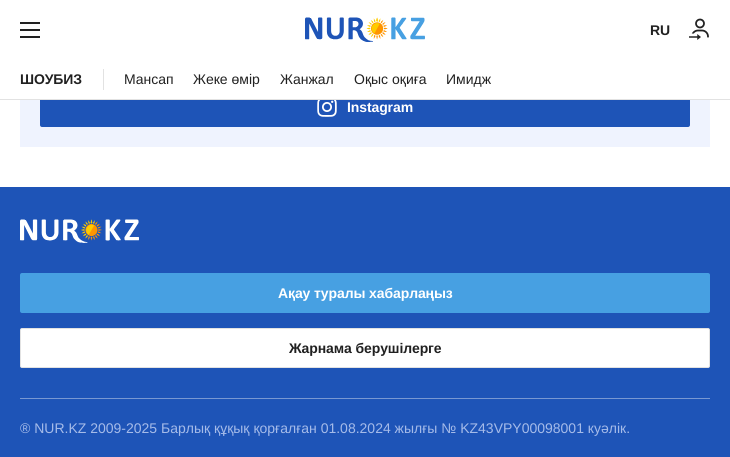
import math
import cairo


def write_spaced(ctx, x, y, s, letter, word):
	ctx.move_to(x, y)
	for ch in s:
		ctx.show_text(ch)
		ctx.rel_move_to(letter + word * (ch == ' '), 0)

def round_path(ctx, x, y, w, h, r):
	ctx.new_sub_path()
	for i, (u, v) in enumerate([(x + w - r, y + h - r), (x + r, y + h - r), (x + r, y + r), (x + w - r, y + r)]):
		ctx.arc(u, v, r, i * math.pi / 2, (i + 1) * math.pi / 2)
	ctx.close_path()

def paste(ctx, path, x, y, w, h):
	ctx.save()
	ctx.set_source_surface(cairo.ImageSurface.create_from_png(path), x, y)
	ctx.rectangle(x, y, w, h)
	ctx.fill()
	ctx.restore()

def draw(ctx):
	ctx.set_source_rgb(1, 1, 1)
	ctx.paint()
	paste(ctx, 'media/1.png', 20, 22, 20, 16)
	paste(ctx, 'media/2.png', 305, 17, 120, 25)
	ctx.select_font_face('Liberation Sans', cairo.FONT_SLANT_NORMAL, cairo.FONT_WEIGHT_BOLD)
	ctx.set_font_size(14)
	ctx.set_source_rgb(0.129, 0.129, 0.129)
	write_spaced(ctx, 650, 35, 'RU', -0.1, 0)
	paste(ctx, 'media/3.png', 689, 18, 20, 22)
	ctx.set_source_rgb(0.937, 0.953, 0.996)
	ctx.rectangle(20, 100, 690, 47)
	ctx.fill()
	ctx.set_source_rgb(0.118, 0.329, 0.718)
	round_path(ctx, 40, 87, 650, 40, 2)
	ctx.fill()
	ctx.set_source_rgb(1, 1, 1)
	ctx.rectangle(40, 87, 650, 12)
	ctx.fill()
	ctx.set_source_rgb(0.886, 0.886, 0.886)
	ctx.rectangle(0, 99, 730, 1)
	ctx.fill()
	ctx.set_source_rgb(0.129, 0.129, 0.129)
	write_spaced(ctx, 20, 84, 'ШОУБИЗ', -0.1, 0)
	ctx.set_source_rgb(0.886, 0.886, 0.886)
	ctx.rectangle(103, 69, 1, 21)
	ctx.fill()
	ctx.select_font_face('Liberation Sans')
	ctx.set_source_rgb(0.129, 0.129, 0.129)
	for x, y, s in [
		(124, 84, 'Мансап'),
		(193, 84, 'Жеке өмір'),
		(280, 84, 'Жанжал'),
		(354, 84, 'Оқыс оқиға'),
		(446, 84, 'Имидж'),
	]:
		ctx.move_to(x, y)
		ctx.show_text(s)
	paste(ctx, 'media/4.png', 317, 100, 20, 17)
	ctx.select_font_face('Liberation Sans', cairo.FONT_SLANT_NORMAL, cairo.FONT_WEIGHT_BOLD)
	ctx.set_source_rgb(1, 1, 1)
	write_spaced(ctx, 347, 112, 'Instagram', -0.1, 0)
	ctx.set_source_rgb(0.118, 0.329, 0.718)
	ctx.rectangle(0, 187, 730, 270)
	ctx.fill()
	paste(ctx, 'media/5.png', 20, 219, 119, 24)
	ctx.set_source_rgb(0.278, 0.627, 0.886)
	round_path(ctx, 20, 273, 690, 40, 2)
	ctx.fill()
	ctx.set_source_rgb(1, 1, 1)
	write_spaced(ctx, 278, 298, 'Ақау туралы хабарлаңыз', -0.1, 0)
	round_path(ctx, 20.5, 328.5, 689, 39, 1.5)
	ctx.fill_preserve()
	ctx.set_source_rgb(0.886, 0.886, 0.886)
	ctx.set_line_width(1)
	ctx.stroke()
	ctx.set_source_rgb(0.129, 0.129, 0.129)
	write_spaced(ctx, 289, 353, 'Жарнама берушілерге', -0.1, 0)
	ctx.set_source_rgb(0.471, 0.596, 0.824)
	ctx.rectangle(20, 398, 690, 1)
	ctx.fill()
	ctx.select_font_face('Liberation Sans')
	ctx.set_source_rgb(0.647, 0.733, 0.914)
	ctx.move_to(20, 433)
	ctx.show_text('® NUR.KZ 2009-2025 Барлық құқық қорғалған 01.08.2024 жылғы № KZ43VPY00098001 куәлік.')


surface = cairo.ImageSurface(cairo.FORMAT_RGB24, 730, 457)
ctx = cairo.Context(surface)
options = cairo.FontOptions()
options.set_hint_metrics(cairo.HINT_METRICS_OFF)
options.set_hint_style(cairo.HINT_STYLE_NONE)
ctx.set_font_options(options)
ctx.set_miter_limit(4)
draw(ctx)
surface.write_to_png('image.png')
